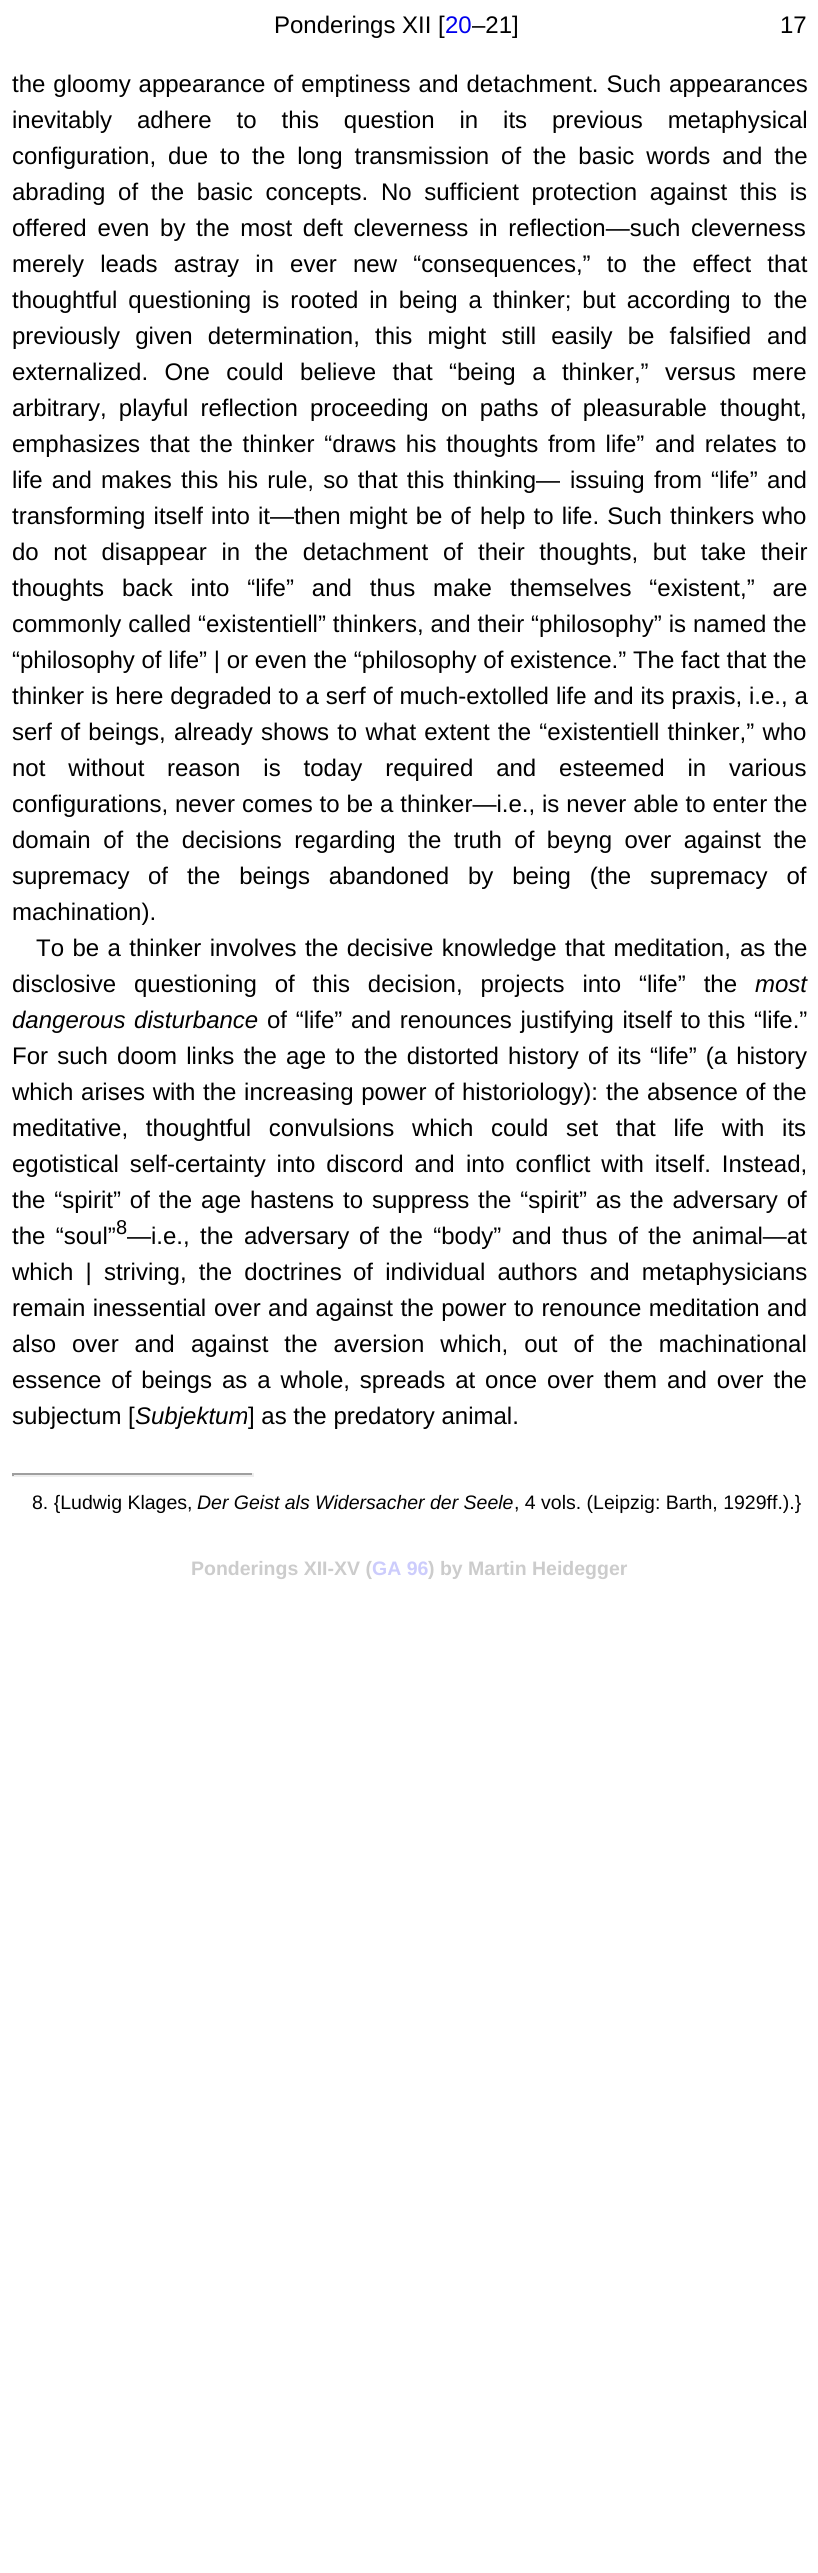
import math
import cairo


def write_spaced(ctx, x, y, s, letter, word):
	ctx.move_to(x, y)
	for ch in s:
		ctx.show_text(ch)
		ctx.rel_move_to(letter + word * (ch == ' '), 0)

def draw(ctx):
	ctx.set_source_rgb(1, 1, 1)
	ctx.paint()
	ctx.select_font_face('Liberation Sans')
	ctx.set_font_size(24)
	ctx.set_source_rgb(0, 0, 0)
	ctx.move_to(274, 33)
	ctx.show_text('Ponderings XII [')
	ctx.set_source_rgb(0, 0, 0.933)
	ctx.move_to(445, 33)
	ctx.show_text('20')
	ctx.set_source_rgb(0, 0, 0)
	ctx.move_to(472, 33)
	ctx.show_text('–21]')
	ctx.move_to(780, 33)
	ctx.show_text('17')
	write_spaced(ctx, 12, 92, 'the gloomy appearance of emptiness and detachment. Such appearances', 0, 1.25)
	write_spaced(ctx, 12, 128, 'inevitably adhere to this question in its previous metaphysical', 0, 18.25)
	write_spaced(ctx, 12, 164, 'configuration, due to the long transmission of the basic words and the', 0, 5.25)
	write_spaced(ctx, 12, 200, 'abrading of the basic concepts. No sufficient protection against this is', 0, 6)
	write_spaced(ctx, 12, 236, 'offered even by the most deft cleverness in reflection—such cleverness', 0, 4)
	write_spaced(ctx, 12, 272, 'merely leads astray in ever new “consequences,” to the effect that', 0, 9.5)
	write_spaced(ctx, 12, 308, 'thoughtful questioning is rooted in being a thinker; but according to', 0, 4.25)
	ctx.move_to(774, 308)
	ctx.show_text('the')
	write_spaced(ctx, 12, 344, 'previously given determination, this might still easily be falsified', 0, 8.5)
	ctx.move_to(767, 344)
	ctx.show_text('and')
	write_spaced(ctx, 12, 380, 'externalized. One could believe that “being a thinker,” versus', 0, 9.75)
	ctx.move_to(752, 380)
	ctx.show_text('mere')
	write_spaced(ctx, 12, 416, 'arbitrary, playful reflection proceeding on paths of pleasurable', 0, 5.5)
	ctx.move_to(720, 416)
	ctx.show_text('thought,')
	write_spaced(ctx, 12, 452, 'emphasizes that the thinker “draws his thoughts from life”', 0, 3)
	write_spaced(ctx, 655, 452, 'and relates to', 0, 3)
	write_spaced(ctx, 12, 488, 'life and makes this his rule, so that this thinking—', 0, 2.5)
	write_spaced(ctx, 570, 488, 'issuing from “life” and', 0, 2.5)
	write_spaced(ctx, 12, 524, 'transforming itself into it—then might be of', 0, 1.5)
	write_spaced(ctx, 480, 524, 'help to life. Such thinkers who', 0, 1.5)
	write_spaced(ctx, 12, 560, 'do not disappear in the detachment of', 0, 8)
	write_spaced(ctx, 478, 560, 'their thoughts, but take their', 0, 8)
	write_spaced(ctx, 12, 596, 'thoughts back into “life” and thus make', 0, 11.25)
	write_spaced(ctx, 510, 596, 'themselves “existent,” are', 0, 11.25)
	write_spaced(ctx, 12, 632, 'commonly called “existentiell” thinkers, and their “philosophy” is named the', 0, 0.25)
	write_spaced(ctx, 12, 668, '“philosophy of life” | or even the “philosophy of existence.” The fact that the', 0, 0.1)
	write_spaced(ctx, 12, 704, 'thinker is here degraded to a serf of much-extolled life and its praxis, i.e., a', 0, 0.25)
	write_spaced(ctx, 12, 740, 'serf of beings, already', 0, 1.5)
	write_spaced(ctx, 261, 740, 'shows to what extent the “existentiell thinker,” who', 0, 1.5)
	write_spaced(ctx, 12, 776, 'not without', 0, 16.25)
	write_spaced(ctx, 167, 776, 'reason is today required and esteemed in various', 0, 16.25)
	ctx.move_to(12, 812)
	ctx.show_text('configurations,')
	write_spaced(ctx, 175, 812, 'never comes to be a thinker—i.e., is never able to enter the', 0, 0.25)
	write_spaced(ctx, 12, 848, 'domain of', 0, 5.75)
	write_spaced(ctx, 136, 848, 'the decisions regarding the truth of beyng over against the', 0, 5.75)
	ctx.move_to(12, 884)
	ctx.show_text('supremacy')
	write_spaced(ctx, 148, 884, 'of the beings abandoned by being (the supremacy of', 0, 12.25)
	ctx.move_to(12, 920)
	ctx.show_text('machination).')
	write_spaced(ctx, 36, 956, 'To be a thinker involves the decisive knowledge that meditation,', 0, 1.75)
	write_spaced(ctx, 740, 956, 'as the', 0, 2)
	write_spaced(ctx, 12, 992, 'disclosive questioning of this decision, projects into “life” the', 0, 11.25)
	ctx.select_font_face('Liberation Sans', cairo.FONT_SLANT_ITALIC)
	ctx.move_to(755, 992)
	ctx.show_text('most')
	write_spaced(ctx, 12, 1028, 'dangerous disturbance', 0, 2)
	ctx.select_font_face('Liberation Sans')
	write_spaced(ctx, 267, 1028, 'of “life” and renounces justifying itself to', 0, 2)
	write_spaced(ctx, 708, 1028, 'this “life.”', 0, 2)
	write_spaced(ctx, 12, 1064, 'For such doom links the age to the distorted history of its', 0, 2.5)
	write_spaced(ctx, 650, 1064, '“life” (a history', 0, 2.5)
	write_spaced(ctx, 12, 1100, 'which arises with the increasing power of historiology):', 0, 1)
	write_spaced(ctx, 606, 1100, 'the absence of the', 0, 1)
	write_spaced(ctx, 12, 1136, 'meditative, thoughtful convulsions which', 0, 11)
	write_spaced(ctx, 491, 1136, 'could set that life with its', 0, 11)
	write_spaced(ctx, 12, 1172, 'egotistical self-certainty into discord and', 0, 4.25)
	write_spaced(ctx, 466, 1172, 'into conflict with itself. Instead,', 0, 4.25)
	write_spaced(ctx, 12, 1208, 'the “spirit” of the age hastens to suppress', 0, 2.25)
	write_spaced(ctx, 478, 1208, 'the “spirit” as the adversary of', 0, 2.25)
	write_spaced(ctx, 12, 1244, 'the “soul”', 0, 3.75)
	ctx.set_font_size(20)
	ctx.move_to(116, 1234)
	ctx.show_text('8')
	ctx.set_font_size(24)
	write_spaced(ctx, 127, 1244, '—i.e., the adversary', 0, 3.75)
	write_spaced(ctx, 359, 1244, 'of the “body” and thus of the animal—at', 0, 3.75)
	write_spaced(ctx, 12, 1280, 'which | striving, the doctrines', 0, 5.5)
	write_spaced(ctx, 353, 1280, 'of individual authors and metaphysicians', 0, 5.5)
	write_spaced(ctx, 12, 1316, 'remain inessential', 0, 0.75)
	write_spaced(ctx, 214, 1316, 'over and against the power to renounce meditation and', 0, 0.75)
	write_spaced(ctx, 12, 1352, 'also over and', 0, 9.25)
	write_spaced(ctx, 191, 1352, 'against the aversion which, out of the machinational', 0, 9.25)
	write_spaced(ctx, 12, 1388, 'essence of beings', 0, 3.25)
	write_spaced(ctx, 222, 1388, 'as a whole, spreads at once over them and over the', 0, 3.25)
	ctx.move_to(12, 1424)
	ctx.show_text('subjectum [')
	ctx.select_font_face('Liberation Sans', cairo.FONT_SLANT_ITALIC)
	ctx.move_to(135, 1424)
	ctx.show_text('Subjektum')
	ctx.select_font_face('Liberation Sans')
	ctx.move_to(248, 1424)
	ctx.show_text('] as the predatory animal.')
	ctx.set_source_rgb(0.624, 0.624, 0.624)
	ctx.rectangle(12, 1473, 242, 2)
	ctx.fill()
	ctx.set_source_rgb(0.933, 0.933, 0.933)
	ctx.rectangle(252, 1473, 2, 3)
	ctx.rectangle(12, 1475, 242, 2)
	ctx.fill()
	ctx.set_source_rgb(0.624, 0.624, 0.624)
	ctx.rectangle(12, 1473, 2, 3)
	ctx.fill()
	ctx.set_font_size(19.5)
	ctx.set_source_rgb(0, 0, 0)
	ctx.move_to(32, 1509)
	ctx.show_text('8. {Ludwig Klages,')
	ctx.select_font_face('Liberation Sans', cairo.FONT_SLANT_ITALIC)
	ctx.move_to(197, 1509)
	ctx.show_text('Der Geist als Widersacher der Seele')
	ctx.select_font_face('Liberation Sans')
	ctx.move_to(514, 1509)
	ctx.show_text(', 4 vols. (Leipzig: Barth, 1929ff.).}')
	ctx.select_font_face('Liberation Sans', cairo.FONT_SLANT_NORMAL, cairo.FONT_WEIGHT_BOLD)
	ctx.set_source_rgb(0.8, 0.8, 0.8)
	ctx.move_to(191, 1575)
	ctx.show_text('Ponderings XII-XV (')
	ctx.set_source_rgb(0.8, 0.8, 0.988)
	ctx.move_to(372, 1575)
	ctx.show_text('GA 96')
	ctx.set_source_rgb(0.8, 0.8, 0.8)
	ctx.move_to(428, 1575)
	ctx.show_text(') by Martin Heidegger')


surface = cairo.ImageSurface(cairo.FORMAT_RGB24, 818, 2573)
ctx = cairo.Context(surface)
options = cairo.FontOptions()
options.set_hint_metrics(cairo.HINT_METRICS_OFF)
options.set_hint_style(cairo.HINT_STYLE_NONE)
ctx.set_font_options(options)
ctx.set_miter_limit(4)
draw(ctx)
surface.write_to_png('image.png')
